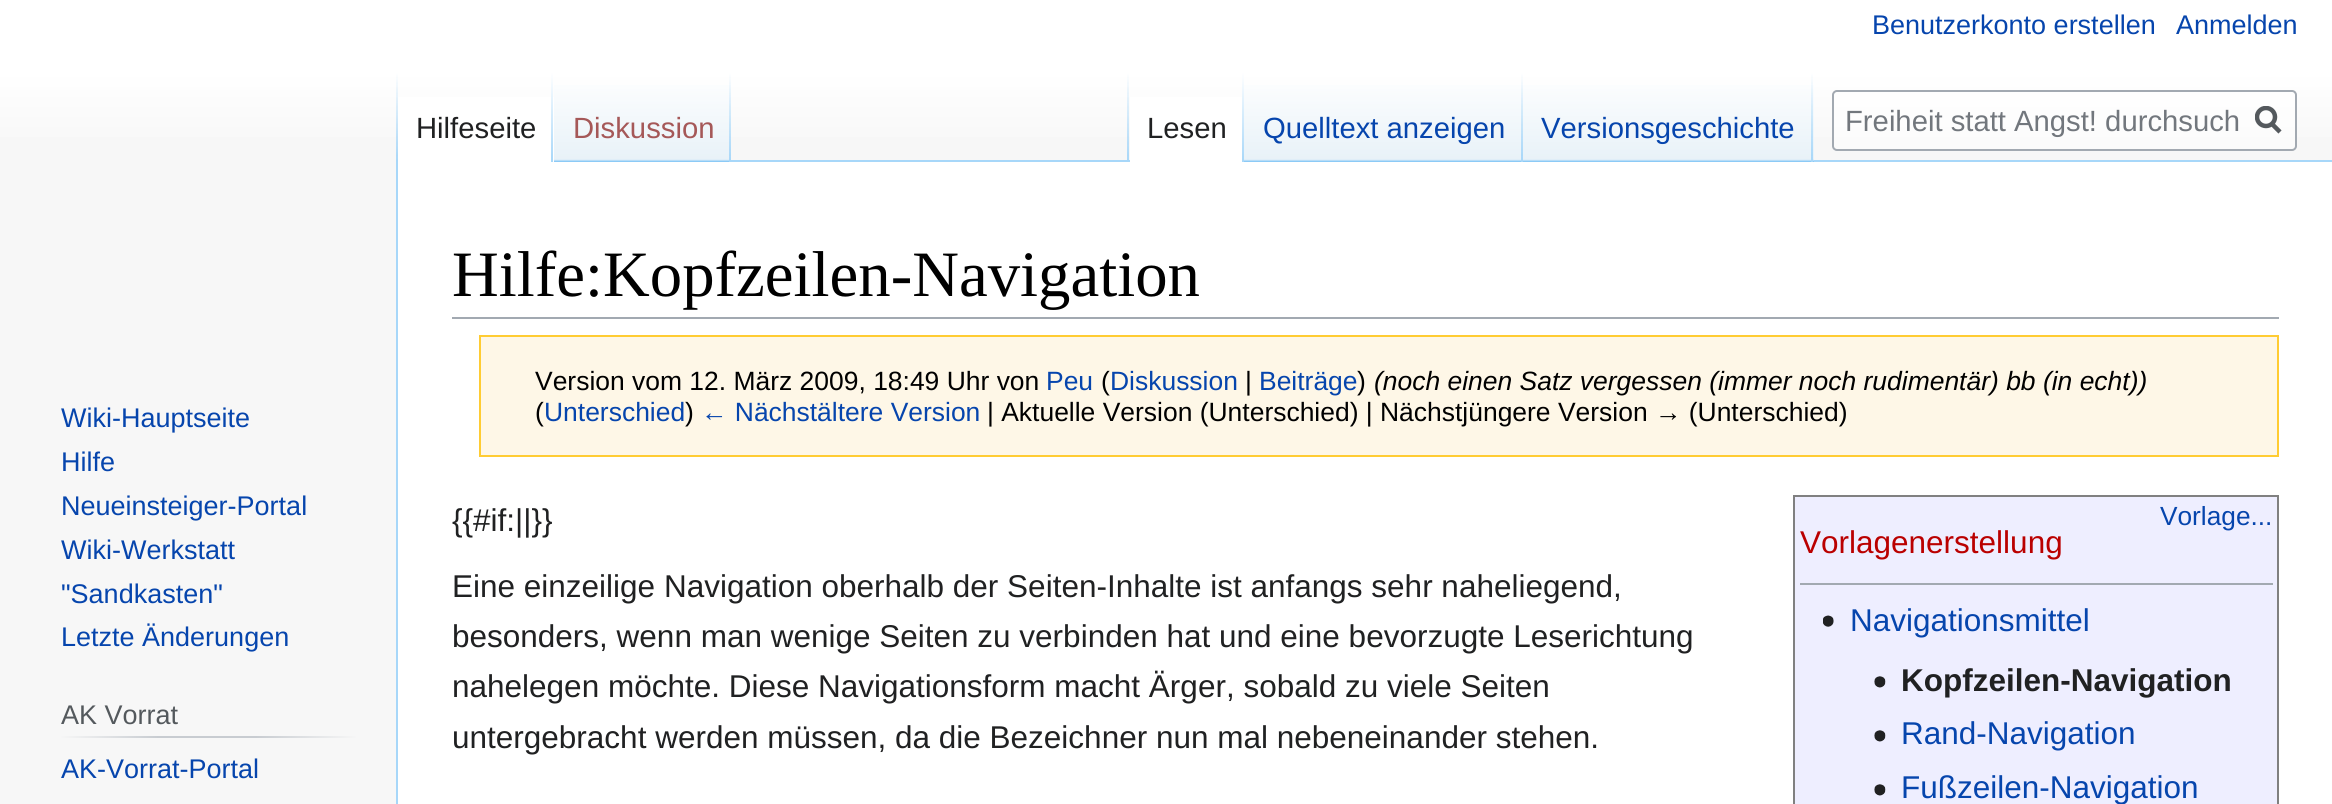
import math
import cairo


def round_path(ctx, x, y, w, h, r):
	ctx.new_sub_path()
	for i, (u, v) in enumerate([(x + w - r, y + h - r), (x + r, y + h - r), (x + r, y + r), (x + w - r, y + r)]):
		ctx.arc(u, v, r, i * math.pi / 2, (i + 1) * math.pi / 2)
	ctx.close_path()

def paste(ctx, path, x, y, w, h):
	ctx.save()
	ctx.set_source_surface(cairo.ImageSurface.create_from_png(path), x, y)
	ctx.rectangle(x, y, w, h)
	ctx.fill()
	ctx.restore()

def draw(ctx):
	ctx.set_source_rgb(0.965, 0.965, 0.965)
	ctx.paint()
	gradient = cairo.LinearGradient(1167, -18, 1167, 162)
	gradient.add_color_stop_rgba(0.5, 1, 1, 1, 1)
	gradient.add_color_stop_rgba(1, 0.965, 0.965, 0.965, 1)
	ctx.set_source(gradient)
	ctx.rectangle(0, 0, 2332, 137)
	ctx.fill()
	ctx.select_font_face('Liberation Sans')
	ctx.set_font_size(27)
	ctx.set_source_rgb(0.024, 0.271, 0.678)
	ctx.move_to(1872, 34)
	ctx.show_text('Benutzerkonto erstellen')
	ctx.move_to(2176, 34)
	ctx.show_text('Anmelden')
	ctx.set_source_rgb(0.655, 0.843, 0.976)
	ctx.rectangle(396, 160, 2, 644)
	ctx.fill()
	gradient = cairo.LinearGradient(397, 72, 397, 162)
	gradient.add_color_stop_rgba(0, 0.655, 0.843, 0.976, 0)
	gradient.add_color_stop_rgba(1, 0.655, 0.843, 0.976, 1)
	ctx.set_source(gradient)
	ctx.rectangle(396, 72, 2, 90)
	ctx.fill()
	ctx.set_source_rgb(1, 1, 1)
	ctx.rectangle(398, 97, 156, 65)
	ctx.fill()
	gradient = cairo.LinearGradient(552, 72, 552, 162)
	gradient.add_color_stop_rgba(0, 1, 1, 1, 1)
	gradient.add_color_stop_rgba(1, 0.655, 0.843, 0.976, 1)
	ctx.set_source(gradient)
	ctx.rectangle(551, 72, 2, 90)
	ctx.fill()
	ctx.set_font_size(29.25)
	ctx.set_source_rgb(0.125, 0.129, 0.133)
	ctx.move_to(416, 138)
	ctx.show_text('Hilfeseite')
	gradient = cairo.LinearGradient(642, 162, 642, 72)
	gradient.add_color_stop_rgba(0, 0.467, 0.757, 0.965, 1)
	gradient.add_color_stop_rgba(0.03, 0.91, 0.949, 0.973, 1)
	gradient.add_color_stop_rgba(1, 1, 1, 1, 1)
	ctx.set_source(gradient)
	ctx.rectangle(554, 85, 177, 77)
	ctx.fill()
	gradient = cairo.LinearGradient(730, 72, 730, 162)
	gradient.add_color_stop_rgba(0, 0.655, 0.843, 0.976, 0)
	gradient.add_color_stop_rgba(1, 0.655, 0.843, 0.976, 1)
	ctx.set_source(gradient)
	ctx.rectangle(729, 72, 2, 90)
	ctx.fill()
	ctx.set_source_rgb(0.647, 0.345, 0.345)
	ctx.move_to(573, 138)
	ctx.show_text('Diskussion')
	ctx.set_source_rgb(0.655, 0.843, 0.976)
	ctx.rectangle(731, 160, 1601, 2)
	ctx.fill()
	gradient = cairo.LinearGradient(1128, 72, 1128, 162)
	gradient.add_color_stop_rgba(0, 0.655, 0.843, 0.976, 0)
	gradient.add_color_stop_rgba(1, 0.655, 0.843, 0.976, 1)
	ctx.set_source(gradient)
	ctx.rectangle(1127, 72, 2, 90)
	ctx.fill()
	ctx.set_source_rgb(1, 1, 1)
	ctx.rectangle(1130, 97, 112, 65)
	ctx.fill()
	gradient = cairo.LinearGradient(1243, 72, 1243, 162)
	gradient.add_color_stop_rgba(0, 1, 1, 1, 1)
	gradient.add_color_stop_rgba(1, 0.655, 0.843, 0.976, 1)
	ctx.set_source(gradient)
	ctx.rectangle(1242, 72, 2, 90)
	ctx.fill()
	ctx.set_source_rgb(0.125, 0.129, 0.133)
	ctx.move_to(1147, 138)
	ctx.show_text('Lesen')
	gradient = cairo.LinearGradient(1384, 162, 1384, 72)
	gradient.add_color_stop_rgba(0, 0.467, 0.757, 0.965, 1)
	gradient.add_color_stop_rgba(0.03, 0.91, 0.949, 0.973, 1)
	gradient.add_color_stop_rgba(1, 1, 1, 1, 1)
	ctx.set_source(gradient)
	ctx.rectangle(1244, 85, 279, 77)
	ctx.fill()
	gradient = cairo.LinearGradient(1522, 72, 1522, 162)
	gradient.add_color_stop_rgba(0, 0.655, 0.843, 0.976, 0)
	gradient.add_color_stop_rgba(1, 0.655, 0.843, 0.976, 1)
	ctx.set_source(gradient)
	ctx.rectangle(1521, 72, 2, 90)
	ctx.fill()
	ctx.set_source_rgb(0.024, 0.271, 0.678)
	ctx.move_to(1263, 138)
	ctx.show_text('Quelltext anzeigen')
	gradient = cairo.LinearGradient(1668, 162, 1668, 72)
	gradient.add_color_stop_rgba(0, 0.467, 0.757, 0.965, 1)
	gradient.add_color_stop_rgba(0.03, 0.91, 0.949, 0.973, 1)
	gradient.add_color_stop_rgba(1, 1, 1, 1, 1)
	ctx.set_source(gradient)
	ctx.rectangle(1523, 85, 291, 77)
	ctx.fill()
	gradient = cairo.LinearGradient(1812, 72, 1812, 162)
	gradient.add_color_stop_rgba(0, 0.655, 0.843, 0.976, 0)
	gradient.add_color_stop_rgba(1, 0.655, 0.843, 0.976, 1)
	ctx.set_source(gradient)
	ctx.rectangle(1811, 72, 2, 90)
	ctx.fill()
	ctx.set_source_rgb(0.024, 0.271, 0.678)
	ctx.move_to(1541, 138)
	ctx.show_text('Versionsgeschichte')
	ctx.set_source_rgba(1, 1, 1, 0.5)
	round_path(ctx, 1833, 91, 463, 59, 4)
	ctx.fill_preserve()
	ctx.set_source_rgb(0.635, 0.663, 0.694)
	ctx.stroke()
	ctx.set_source_rgb(0.447, 0.467, 0.49)
	ctx.move_to(1845, 131)
	ctx.show_text('Freiheit statt Angst! durchsuch')
	ctx.new_path()
	ctx.move_to(2280, 132)
	ctx.line_to(2271, 123)
	ctx.set_source_rgb(0.329, 0.349, 0.365)
	ctx.set_line_width(4.5)
	ctx.stroke()
	ctx.save()
	ctx.rectangle(2255, 106, 27, 29)
	ctx.clip()
	ctx.arc(2266, 117, 9, 0, 2 * math.pi)
	ctx.stroke()
	ctx.restore()
	ctx.set_font_size(27)
	ctx.set_source_rgb(0.024, 0.271, 0.678)
	for x, y, s in [
		(61, 427, 'Wiki-Hauptseite'),
		(61, 471, 'Hilfe'),
		(61, 515, 'Neueinsteiger-Portal'),
		(61, 559, 'Wiki-Werkstatt'),
		(61, 603, '"Sandkasten"'),
		(61, 646, 'Letzte Änderungen'),
	]:
		ctx.move_to(x, y)
		ctx.show_text(s)
	gradient = cairo.LinearGradient(61, 737, 356, 737)
	gradient.add_color_stop_rgba(0, 0.965, 0.965, 0.965, 1)
	gradient.add_color_stop_rgba(0.33, 0.784, 0.8, 0.82, 1)
	gradient.add_color_stop_rgba(0.66, 0.784, 0.8, 0.82, 1)
	gradient.add_color_stop_rgba(1, 0.965, 0.965, 0.965, 1)
	ctx.set_source(gradient)
	ctx.rectangle(61, 736, 295, 2)
	ctx.fill()
	ctx.set_source_rgb(0.329, 0.349, 0.365)
	ctx.move_to(61, 724)
	ctx.show_text('AK Vorrat')
	ctx.set_source_rgb(0.024, 0.271, 0.678)
	ctx.move_to(61, 778)
	ctx.show_text('AK-Vorrat-Portal')
	ctx.set_source_rgb(1, 1, 1)
	ctx.rectangle(398, 162, 1934, 642)
	ctx.fill()
	ctx.set_source_rgb(0.635, 0.663, 0.694)
	ctx.rectangle(452, 317, 1827, 2)
	ctx.fill()
	ctx.select_font_face('Liberation Serif')
	ctx.set_font_size(64.75)
	ctx.set_source_rgb(0, 0, 0)
	ctx.move_to(452, 296)
	ctx.show_text('Hilfe:Kopfzeilen-Navigation')
	ctx.set_source_rgb(0.996, 0.965, 0.906)
	ctx.rectangle(480, 336, 1798, 120)
	ctx.fill_preserve()
	ctx.set_source_rgb(1, 0.8, 0.2)
	ctx.set_line_width(2)
	ctx.stroke()
	ctx.select_font_face('Liberation Sans')
	ctx.set_font_size(26.45)
	ctx.set_source_rgb(0, 0, 0)
	ctx.move_to(535, 390)
	ctx.show_text('Version vom 12. März 2009, 18:49 Uhr von')
	ctx.set_source_rgb(0.024, 0.271, 0.678)
	ctx.move_to(1046, 390)
	ctx.show_text('Peu')
	ctx.set_source_rgb(0, 0, 0)
	ctx.move_to(1101, 390)
	ctx.show_text('(')
	ctx.set_source_rgb(0.024, 0.271, 0.678)
	ctx.move_to(1110, 390)
	ctx.show_text('Diskussion')
	ctx.set_source_rgb(0, 0, 0)
	ctx.move_to(1245, 390)
	ctx.show_text('|')
	ctx.set_source_rgb(0.024, 0.271, 0.678)
	ctx.move_to(1259, 390)
	ctx.show_text('Beiträge')
	ctx.set_source_rgb(0, 0, 0)
	ctx.move_to(1357, 390)
	ctx.show_text(')')
	ctx.select_font_face('Liberation Sans', cairo.FONT_SLANT_ITALIC)
	ctx.move_to(1374, 390)
	ctx.show_text('(noch einen Satz vergessen (immer noch rudimentär) bb (in echt))')
	ctx.select_font_face('Liberation Sans')
	ctx.move_to(535, 421)
	ctx.show_text('(')
	ctx.set_source_rgb(0.024, 0.271, 0.678)
	ctx.move_to(544, 421)
	ctx.show_text('Unterschied')
	ctx.set_source_rgb(0, 0, 0)
	ctx.move_to(685, 421)
	ctx.show_text(')')
	ctx.set_source_rgb(0.024, 0.271, 0.678)
	ctx.move_to(701, 421)
	ctx.show_text('← Nächstältere Version')
	ctx.set_source_rgb(0, 0, 0)
	ctx.move_to(987, 421)
	ctx.show_text('| Aktuelle Version (Unterschied) | Nächstjüngere Version → (Unterschied)')
	ctx.set_font_size(31.5)
	ctx.set_source_rgb(0.125, 0.129, 0.133)
	ctx.move_to(452, 531)
	ctx.show_text('{{#if:||}}')
	ctx.set_source_rgb(0.933, 0.933, 1)
	ctx.rectangle(1794, 496, 484, 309)
	ctx.fill_preserve()
	ctx.set_source_rgb(0.502, 0.502, 0.502)
	ctx.stroke()
	ctx.set_font_size(26.25)
	ctx.set_source_rgb(0.024, 0.271, 0.678)
	ctx.move_to(2160, 525)
	ctx.show_text('Vorlage...')
	ctx.set_font_size(31.5)
	ctx.set_source_rgb(0.729, 0, 0)
	ctx.move_to(1800, 553)
	ctx.show_text('Vorlagenerstellung')
	ctx.set_source_rgb(0.635, 0.663, 0.694)
	ctx.rectangle(1800, 583, 473, 2)
	ctx.fill()
	paste(ctx, 'media/1.png', 1823, 615, 11, 12)
	ctx.set_source_rgb(0.024, 0.271, 0.678)
	ctx.move_to(1850, 631)
	ctx.show_text('Navigationsmittel')
	paste(ctx, 'media/2.png', 1874, 676, 12, 12)
	ctx.select_font_face('Liberation Sans', cairo.FONT_SLANT_NORMAL, cairo.FONT_WEIGHT_BOLD)
	ctx.set_source_rgb(0.125, 0.129, 0.133)
	ctx.move_to(1901, 691)
	ctx.show_text('Kopfzeilen-Navigation')
	paste(ctx, 'media/2.png', 1874, 730, 12, 12)
	ctx.select_font_face('Liberation Sans')
	ctx.set_source_rgb(0.024, 0.271, 0.678)
	ctx.move_to(1901, 744)
	ctx.show_text('Rand-Navigation')
	paste(ctx, 'media/2.png', 1874, 784, 12, 12)
	ctx.move_to(1901, 798)
	ctx.show_text('Fußzeilen-Navigation')
	ctx.set_source_rgb(0.125, 0.129, 0.133)
	for x, y, s in [
		(452, 597, 'Eine einzeilige Navigation oberhalb der Seiten-Inhalte ist anfangs sehr naheliegend,'),
		(452, 647, 'besonders, wenn man wenige Seiten zu verbinden hat und eine bevorzugte Leserichtung'),
		(452, 697, 'nahelegen möchte. Diese Navigationsform macht Ärger, sobald zu viele Seiten'),
		(452, 748, 'untergebracht werden müssen, da die Bezeichner nun mal nebeneinander stehen.'),
	]:
		ctx.move_to(x, y)
		ctx.show_text(s)


surface = cairo.ImageSurface(cairo.FORMAT_RGB24, 2332, 804)
ctx = cairo.Context(surface)
options = cairo.FontOptions()
options.set_hint_metrics(cairo.HINT_METRICS_OFF)
options.set_hint_style(cairo.HINT_STYLE_NONE)
ctx.set_font_options(options)
ctx.set_miter_limit(4)
draw(ctx)
surface.write_to_png('image.png')
